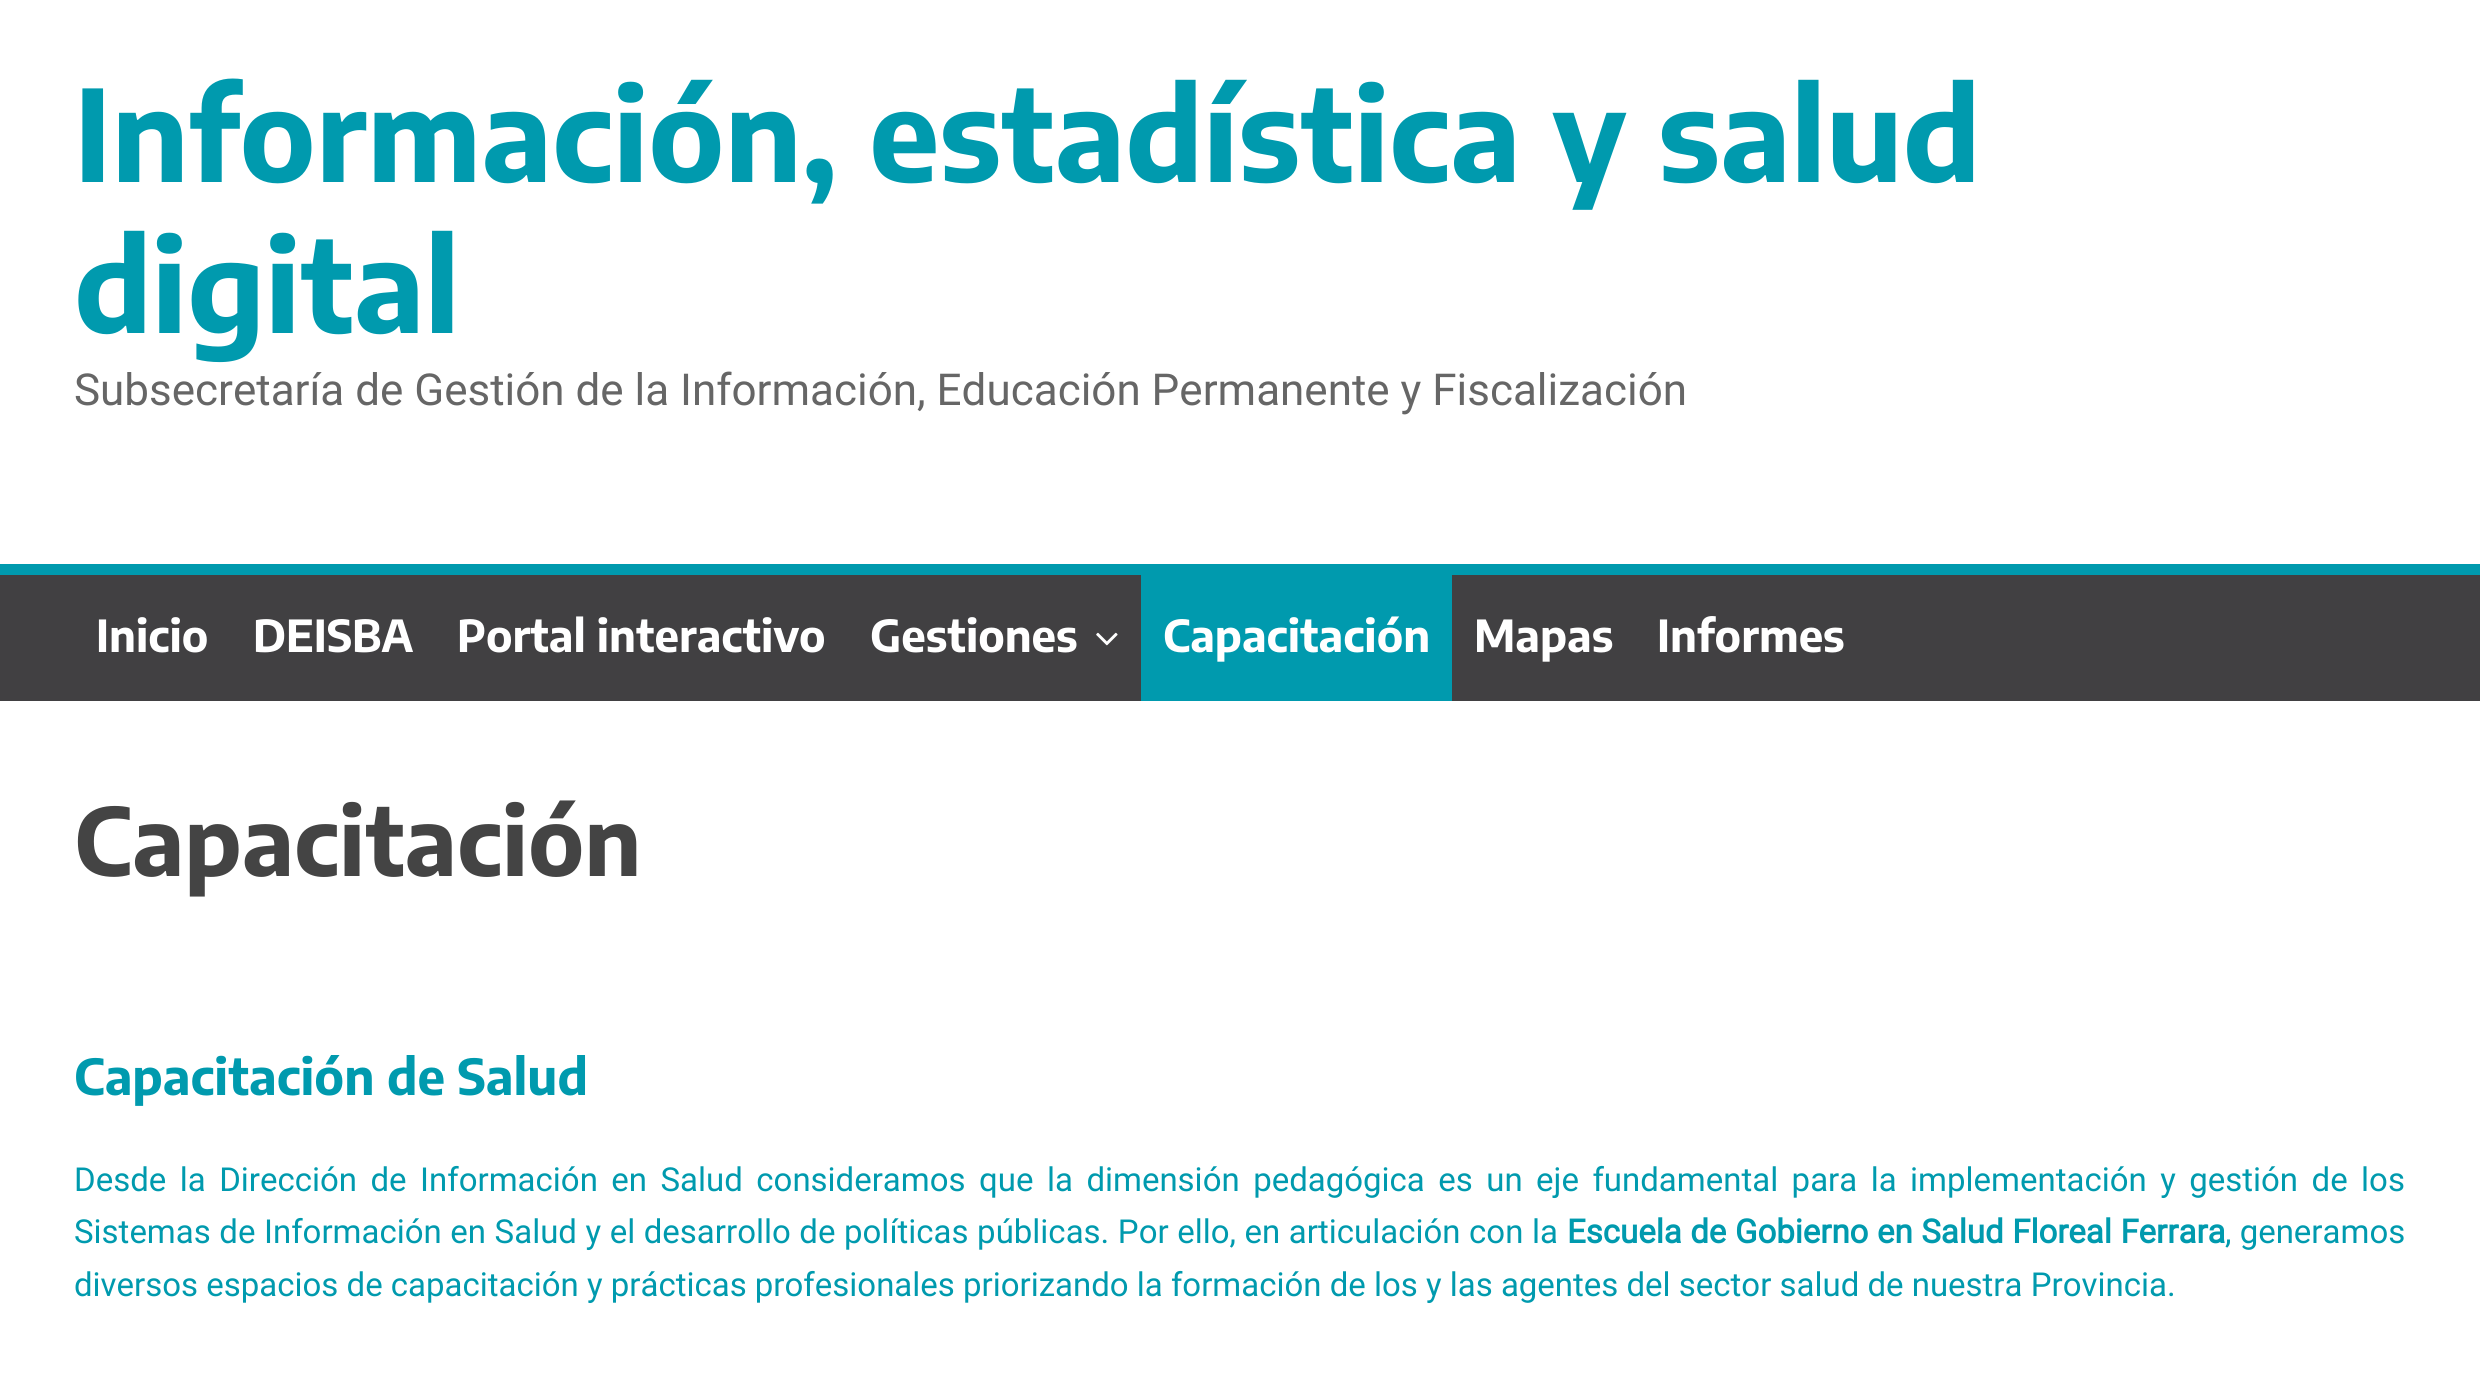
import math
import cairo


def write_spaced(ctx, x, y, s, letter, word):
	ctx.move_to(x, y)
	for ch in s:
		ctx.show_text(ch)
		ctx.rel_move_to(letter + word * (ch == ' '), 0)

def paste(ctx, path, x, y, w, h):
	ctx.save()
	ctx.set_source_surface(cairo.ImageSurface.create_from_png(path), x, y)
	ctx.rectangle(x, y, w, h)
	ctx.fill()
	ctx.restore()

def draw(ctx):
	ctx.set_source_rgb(1, 1, 1)
	ctx.paint()
	ctx.select_font_face('Encode Sans', cairo.FONT_SLANT_NORMAL, cairo.FONT_WEIGHT_BOLD)
	ctx.set_font_size(126.5)
	ctx.set_source_rgb(0, 0.604, 0.682)
	ctx.move_to(74, 182)
	ctx.show_text('Información, estadística y salud')
	ctx.move_to(74, 333)
	ctx.show_text('digital')
	ctx.select_font_face('Roboto')
	ctx.set_font_size(44)
	ctx.set_source_rgb(0.4, 0.4, 0.4)
	ctx.move_to(74, 405)
	ctx.show_text('Subsecretaría de Gestión de la Información, Educación Permanente y Fiscalización')
	ctx.set_source_rgb(0.255, 0.251, 0.259)
	ctx.rectangle(0, 575, 2480, 126)
	ctx.fill()
	ctx.set_source_rgb(0, 0.604, 0.682)
	ctx.rectangle(0, 564, 2480, 11)
	ctx.fill()
	ctx.select_font_face('Encode Sans', cairo.FONT_SLANT_NORMAL, cairo.FONT_WEIGHT_BOLD)
	ctx.set_source_rgb(1, 1, 1)
	for x, y, s in [
		(96, 652, 'Inicio'),
		(253, 652, 'DEISBA'),
		(457, 652, 'Portal interactivo'),
		(870, 652, 'Gestiones'),
	]:
		ctx.move_to(x, y)
		ctx.show_text(s)
	paste(ctx, 'media/1.png', 1096, 632, 22, 14)
	ctx.set_source_rgb(0, 0.604, 0.682)
	ctx.rectangle(1141, 575, 311, 126)
	ctx.fill()
	ctx.set_source_rgb(1, 1, 1)
	for x, y, s in [
		(1163, 652, 'Capacitación'),
		(1474, 652, 'Mapas'),
		(1657, 652, 'Informes'),
	]:
		ctx.move_to(x, y)
		ctx.show_text(s)
	ctx.set_font_size(93.5)
	ctx.set_source_rgb(0.267, 0.267, 0.267)
	ctx.move_to(74, 876)
	ctx.show_text('Capacitación')
	ctx.set_font_size(49.5)
	ctx.set_source_rgb(0, 0.604, 0.682)
	ctx.move_to(74, 1095)
	ctx.show_text('Capacitación de Salud')
	ctx.select_font_face('Roboto')
	ctx.set_font_size(33)
	write_spaced(ctx, 74, 1191, 'Desde la Dirección de Información en Salud consideramos que la dimensión pedagógica es un eje fundamental para la implementación y gestión de los', 0, 5.3)
	write_spaced(ctx, 74, 1243, 'Sistemas de Información en Salud y el desarrollo de políticas públicas. Por ello, en articulación con la', 0, 0.4)
	ctx.select_font_face('Roboto', cairo.FONT_SLANT_NORMAL, cairo.FONT_WEIGHT_BOLD)
	write_spaced(ctx, 1567, 1243, 'Escuela de Gobierno en Salud Floreal Ferrara', 0, 0.4)
	ctx.select_font_face('Roboto')
	ctx.move_to(2225, 1243)
	ctx.show_text(', generamos')
	ctx.move_to(74, 1296)
	ctx.show_text('diversos espacios de capacitación y prácticas profesionales priorizando la formación de los y las agentes del sector salud de nuestra Provincia.')


surface = cairo.ImageSurface(cairo.FORMAT_RGB24, 2480, 1381)
ctx = cairo.Context(surface)
options = cairo.FontOptions()
options.set_hint_metrics(cairo.HINT_METRICS_OFF)
options.set_hint_style(cairo.HINT_STYLE_NONE)
ctx.set_font_options(options)
ctx.set_miter_limit(4)
draw(ctx)
surface.write_to_png('image.png')
